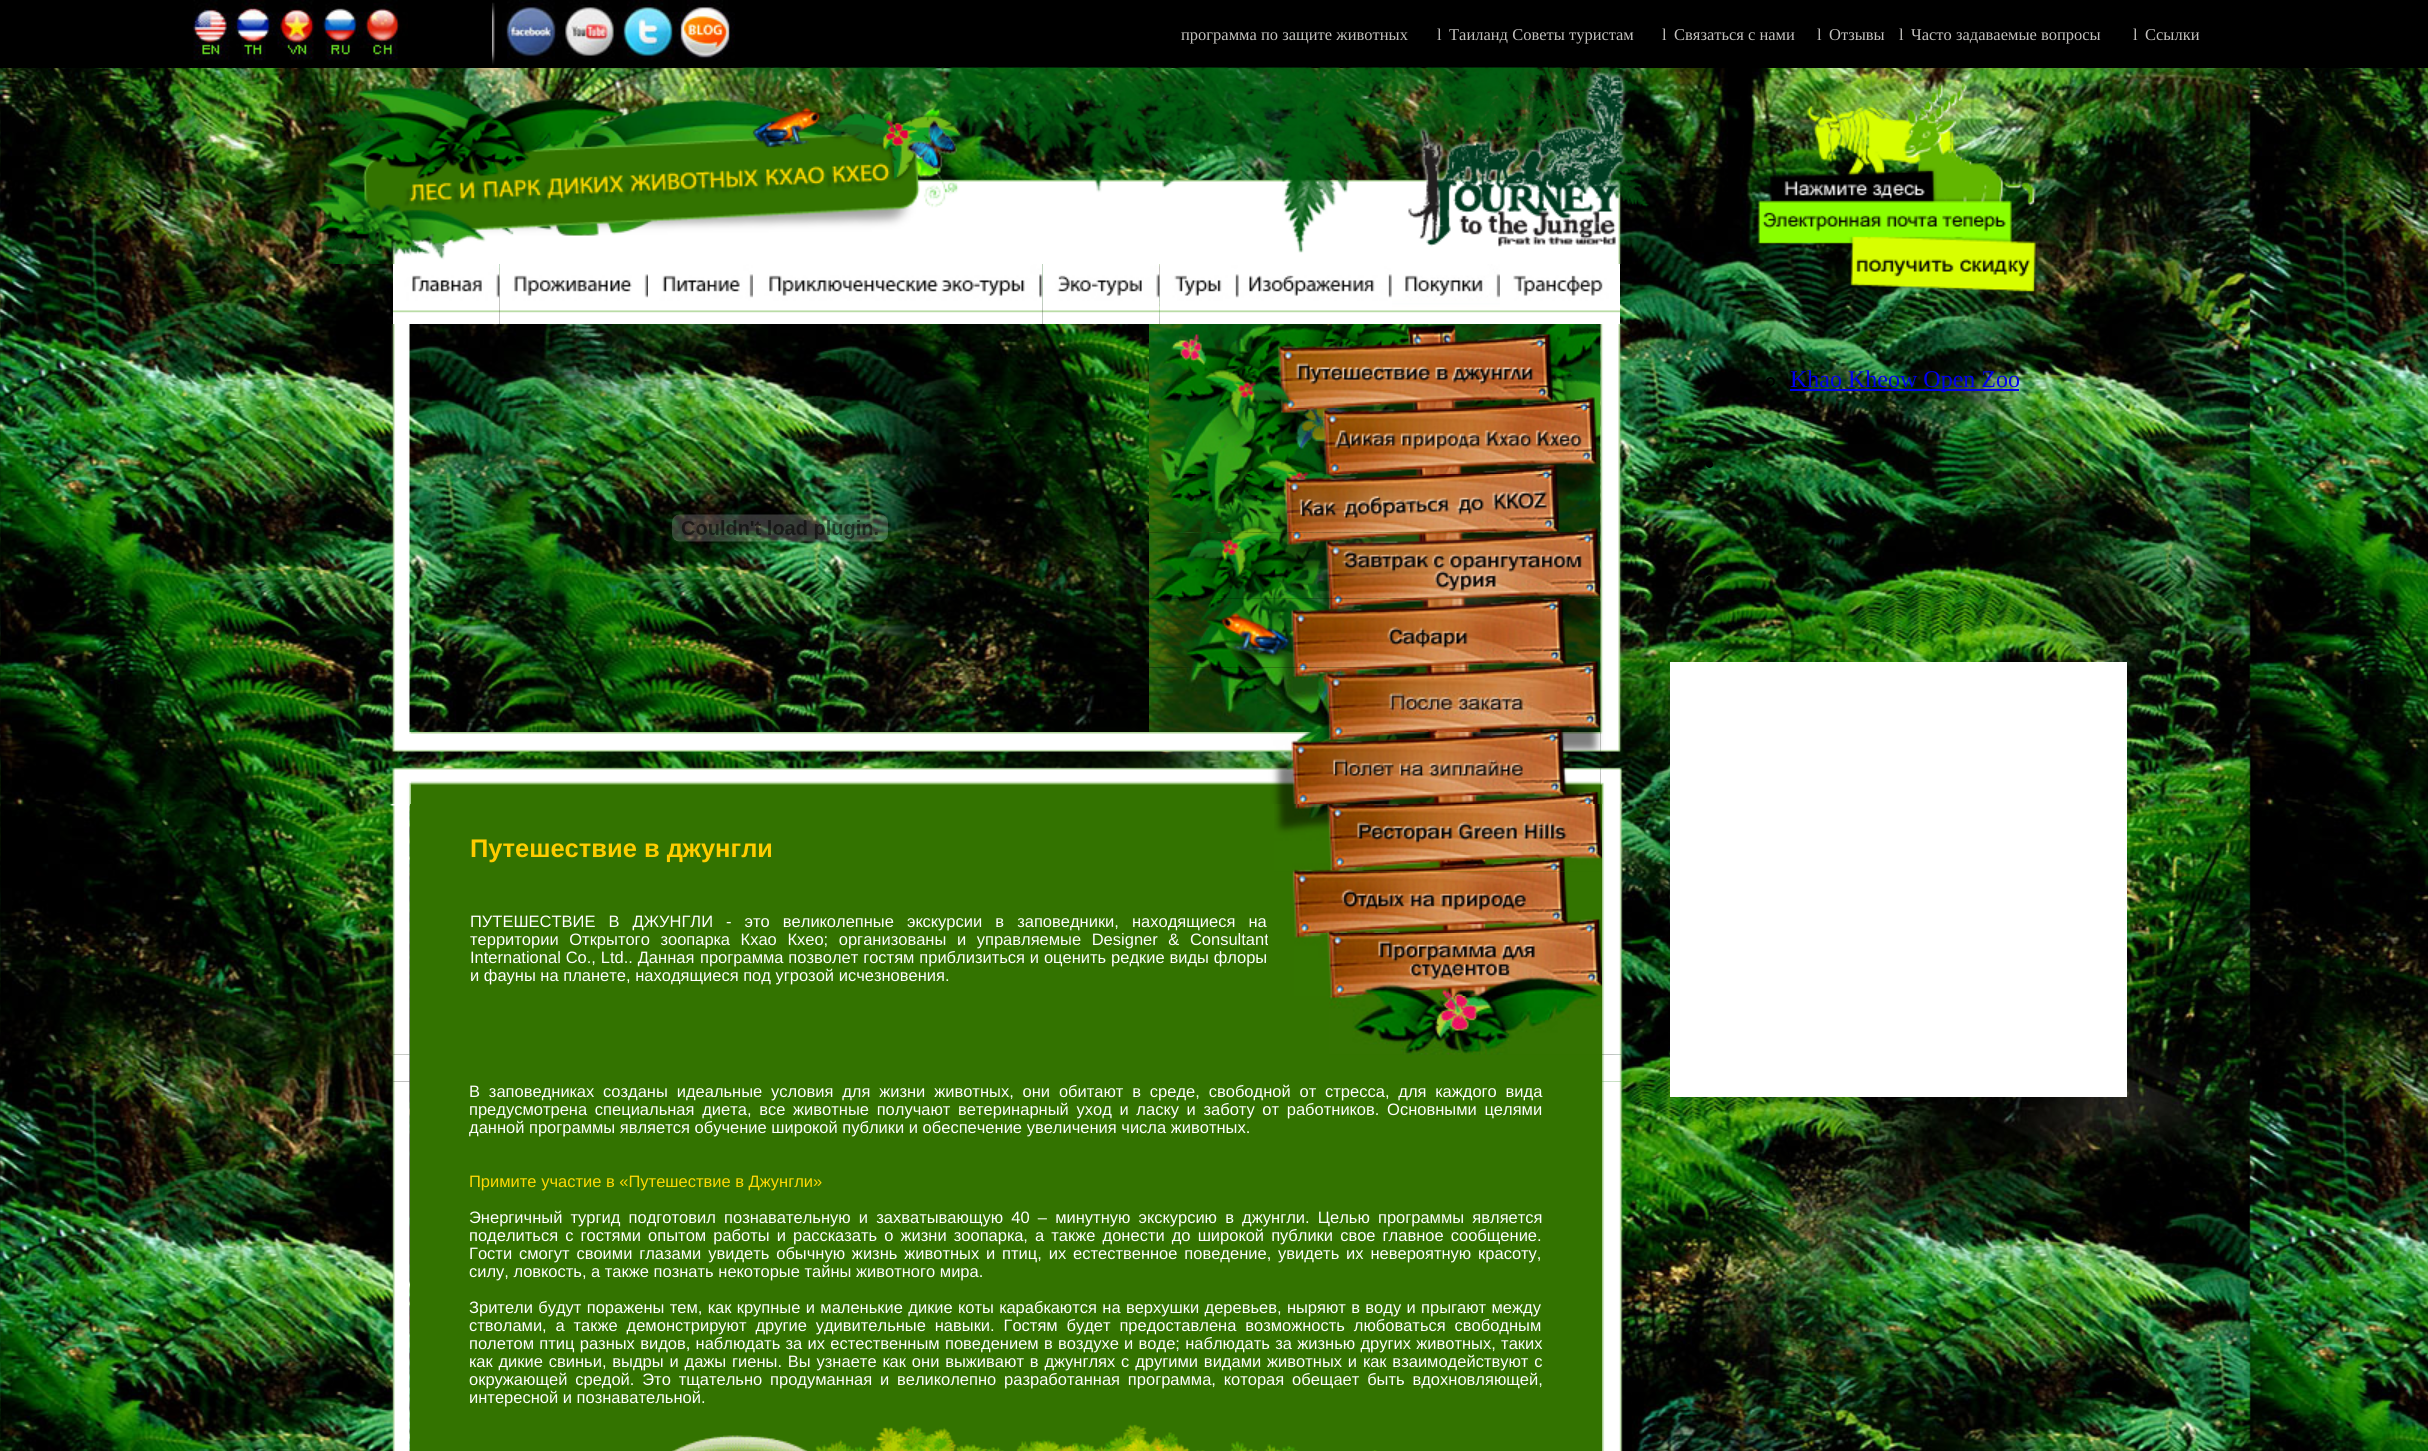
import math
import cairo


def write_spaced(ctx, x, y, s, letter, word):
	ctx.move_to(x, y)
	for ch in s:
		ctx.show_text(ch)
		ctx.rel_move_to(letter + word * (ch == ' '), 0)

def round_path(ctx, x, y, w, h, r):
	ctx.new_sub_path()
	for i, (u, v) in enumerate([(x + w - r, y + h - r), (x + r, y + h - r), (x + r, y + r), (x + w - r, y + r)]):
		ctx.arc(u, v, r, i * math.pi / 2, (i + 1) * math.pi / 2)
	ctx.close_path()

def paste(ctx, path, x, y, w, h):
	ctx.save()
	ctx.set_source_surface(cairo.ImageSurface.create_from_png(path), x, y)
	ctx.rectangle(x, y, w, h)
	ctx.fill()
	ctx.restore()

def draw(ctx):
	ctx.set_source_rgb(1, 1, 1)
	ctx.paint()
	paste(ctx, 'media/1.png', 0, 68, 2428, 1383)
	ctx.set_source_rgb(0, 0, 0)
	ctx.rectangle(0, 0, 2428, 68)
	ctx.fill()
	paste(ctx, 'media/2.png', 193, 0, 215, 61)
	paste(ctx, 'media/3.png', 492, 2, 3, 63)
	paste(ctx, 'media/4.png', 502, 0, 233, 60)
	ctx.select_font_face('Liberation Serif')
	ctx.set_font_size(16.5)
	ctx.set_source_rgb(0.765, 0.757, 0.745)
	for x, y, s in [
		(1181, 40, 'программа по защите животных'),
		(1437, 40, 'l'),
		(1449, 40, 'Таиланд Советы туристам'),
		(1662, 40, 'l'),
		(1674, 40, 'Связаться с нами'),
		(1817, 40, 'l'),
		(1829, 40, 'Отзывы'),
		(1899, 40, 'l'),
		(1911, 40, 'Часто задаваемые вопросы'),
		(2133, 40, 'l'),
		(2145, 40, 'Ссылки'),
	]:
		ctx.move_to(x, y)
		ctx.show_text(s)
	paste(ctx, 'media/5.png', 1757, 82, 280, 211)
	ctx.set_source_rgb(0, 0, 0)
	ctx.arc(1709.5, 380.5, 3.5, 0, 2 * math.pi)
	ctx.fill()
	ctx.arc(1770.5, 381.5, 3.5, 0, 2 * math.pi)
	ctx.stroke()
	ctx.set_source_rgb(0, 0, 0.933)
	ctx.rectangle(1790, 389, 229, 2)
	ctx.fill()
	ctx.set_font_size(24)
	ctx.move_to(1790, 387)
	ctx.show_text('Khao Kheow Open Zoo')
	ctx.set_source_rgb(0, 0, 0)
	ctx.new_path()
	ctx.arc(1709.5, 464.5, 3.5, 0, 2 * math.pi)
	ctx.fill()
	round_path(ctx, 1706, 576, 7, 8, 3.5)
	ctx.fill()
	ctx.set_source_rgb(1, 1, 1)
	ctx.rectangle(1670, 662, 457, 435)
	ctx.fill()
	paste(ctx, 'media/6.png', 307, 67, 1342, 197)
	paste(ctx, 'media/7.png', 393, 264, 107, 60)
	paste(ctx, 'media/8.png', 499, 264, 149, 60)
	paste(ctx, 'media/9.png', 648, 264, 105, 60)
	paste(ctx, 'media/10.png', 753, 264, 290, 60)
	paste(ctx, 'media/11.png', 1042, 264, 118, 60)
	paste(ctx, 'media/12.png', 1159, 264, 80, 60)
	paste(ctx, 'media/13.png', 1239, 264, 153, 60)
	paste(ctx, 'media/14.png', 1392, 264, 108, 60)
	paste(ctx, 'media/15.png', 1500, 264, 120, 60)
	paste(ctx, 'media/16.png', 391, 324, 19, 408)
	paste(ctx, 'media/17.png', 672, 514, 216, 28)
	paste(ctx, 'media/18.png', 1149, 324, 452, 84)
	paste(ctx, 'media/19.png', 1149, 408, 452, 66)
	paste(ctx, 'media/20.png', 1149, 474, 452, 59)
	paste(ctx, 'media/21.png', 1149, 532, 452, 67)
	paste(ctx, 'media/22.png', 1149, 598, 452, 70)
	paste(ctx, 'media/23.png', 1149, 667, 452, 65)
	paste(ctx, 'media/24.png', 1149, 732, 452, 72)
	paste(ctx, 'media/25.png', 1600, 324, 22, 408)
	paste(ctx, 'media/26.png', 391, 732, 20, 72)
	paste(ctx, 'media/27.png', 411, 732, 738, 72)
	paste(ctx, 'media/28.png', 1600, 732, 23, 72)
	paste(ctx, 'media/29.png', 391, 804, 19, 251)
	paste(ctx, 'media/30.png', 389, 804, 21, 2)
	ctx.set_source_rgb(0.2, 0.451, 0)
	ctx.rectangle(410, 804, 858, 278)
	ctx.fill()
	ctx.select_font_face('Liberation Sans', cairo.FONT_SLANT_NORMAL, cairo.FONT_WEIGHT_BOLD)
	ctx.set_font_size(25.5)
	ctx.set_source_rgb(1, 0.8, 0)
	ctx.move_to(470, 857)
	ctx.show_text('Путешествие в джунгли')
	ctx.select_font_face('Liberation Sans')
	ctx.set_font_size(16.5)
	ctx.set_source_rgb(1, 1, 1)
	write_spaced(ctx, 470, 927, 'ПУТЕШЕСТВИЕ В ДЖУНГЛИ', 0, 8.5)
	write_spaced(ctx, 726, 927, '- это великолепные экскурсии в заповедники, находящиеся на', 0, 8.5)
	write_spaced(ctx, 470, 945, 'территории Открытого зоопарка Кхао Кхео; организованы и управляемые Designer & Consultant', 0, 6)
	write_spaced(ctx, 470, 963, 'International Co., Ltd.. Данная', 0, 0.25)
	write_spaced(ctx, 700, 963, 'программа позволет гостям приблизиться и оценить редкие виды флоры', 0, 0.25)
	ctx.move_to(470, 981)
	ctx.show_text('и фауны на планете, находящиеся под угрозой исчезновения.')
	ctx.set_source_rgb(0.2, 0.451, 0)
	ctx.rectangle(1268, 804, 334, 278)
	ctx.fill()
	paste(ctx, 'media/31.png', 1274, 804, 328, 68)
	paste(ctx, 'media/32.png', 1292, 871, 309, 62)
	paste(ctx, 'media/33.png', 1294, 933, 308, 63)
	paste(ctx, 'media/34.png', 1329, 996, 273, 59)
	paste(ctx, 'media/35.png', 1602, 804, 21, 251)
	paste(ctx, 'media/36.png', 1621, 804, 2, 5)
	paste(ctx, 'media/37.png', 391, 1054, 19, 28)
	paste(ctx, 'media/38.png', 1602, 1054, 21, 28)
	paste(ctx, 'media/39.png', 391, 1081, 19, 370)
	ctx.rectangle(410, 1082, 1192, 369)
	ctx.fill()
	ctx.set_source_rgb(1, 1, 1)
	write_spaced(ctx, 469, 1097, 'В заповедниках созданы идеальные условия для жизни животных, они обитают в среде, свободной от стресса, для каждого вида', 0, 4.25)
	write_spaced(ctx, 469, 1115, 'предусмотрена специальная диета, все животные получают ветеринарный уход и ласку и заботу от работников. Основными целями', 0, 3.1)
	ctx.move_to(469, 1133)
	ctx.show_text('данной программы является обучение широкой публики и обеспечение увеличения числа животных.')
	ctx.set_source_rgb(1, 0.847, 0.024)
	ctx.move_to(469, 1187)
	ctx.show_text('Примите участие в «Путешествие в Джунгли»')
	ctx.set_source_rgb(1, 1, 1)
	write_spaced(ctx, 469, 1223, 'Энергичный тургид подготовил познавательную и захватывающую 40 – минутную экскурсию в джунгли. Целью программы является', 0, 3.6)
	write_spaced(ctx, 469, 1241, 'поделиться с гостями опытом работы и рассказать о жизни зоопарка, а также донести до широкой публики свое главное сообщение.', 0, 2.5)
	write_spaced(ctx, 469, 1259, 'Гости смогут своими глазами увидеть обычную жизнь животных и птиц, их естественное поведение, увидеть их невероятную красоту,', 0, 2.25)
	ctx.move_to(469, 1277)
	ctx.show_text('силу, ловкость, а также познать некоторые тайны животного мира.')
	write_spaced(ctx, 469, 1313, 'Зрители будут поражены тем, как крупные и маленькие дикие коты карабкаются на верхушки деревьев, ныряют в воду и прыгают между', 0, 0.75)
	write_spaced(ctx, 469, 1331, 'стволами, а также демонстрируют другие удивительные навыки. Гостям будет предоставлена возможность любоваться свободным', 0, 4.25)
	write_spaced(ctx, 469, 1349, 'полетом птиц разных видов, наблюдать за их естественным поведением в воздухе и воде; наблюдать за жизнью других животных, таких', 0, 0.7)
	write_spaced(ctx, 469, 1367, 'как дикие свиньи, выдры и дажы гиены. Вы узнаете как они выживают в джунглях с другими видами животных и как взаимодействуют с', 0, 1.25)
	write_spaced(ctx, 469, 1385, 'окружающей средой. Это тщательно продуманная и великолепно разработанная программа, которая обещает быть вдохновляющей,', 0, 3.25)
	ctx.move_to(469, 1403)
	ctx.show_text('интересной и познавательной.')
	paste(ctx, 'media/40.png', 671, 1424, 706, 27)
	paste(ctx, 'media/41.png', 1602, 1081, 21, 370)


surface = cairo.ImageSurface(cairo.FORMAT_RGB24, 2428, 1451)
ctx = cairo.Context(surface)
options = cairo.FontOptions()
options.set_hint_metrics(cairo.HINT_METRICS_OFF)
options.set_hint_style(cairo.HINT_STYLE_NONE)
ctx.set_font_options(options)
ctx.set_miter_limit(4)
draw(ctx)
surface.write_to_png('image.png')
